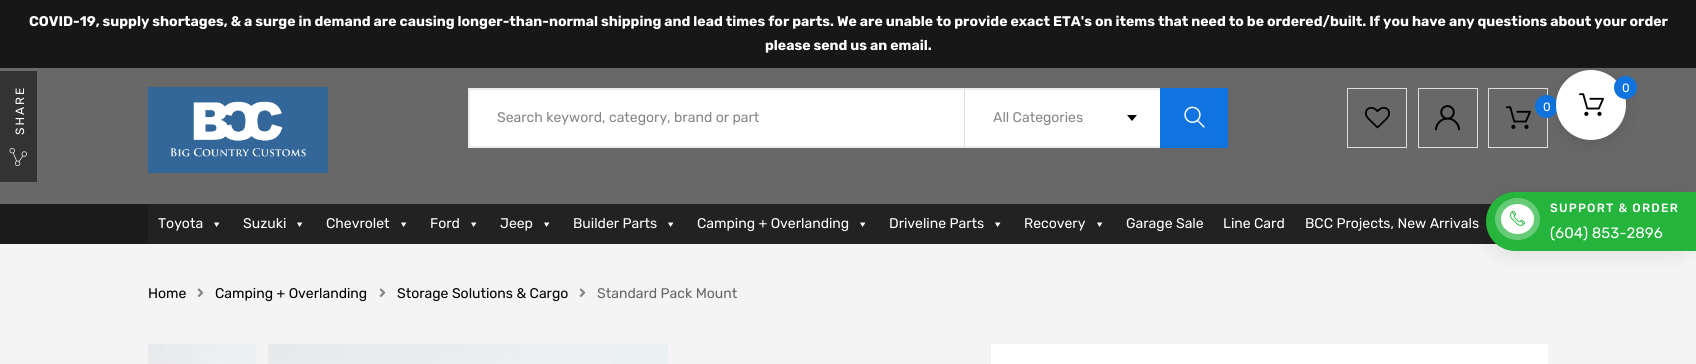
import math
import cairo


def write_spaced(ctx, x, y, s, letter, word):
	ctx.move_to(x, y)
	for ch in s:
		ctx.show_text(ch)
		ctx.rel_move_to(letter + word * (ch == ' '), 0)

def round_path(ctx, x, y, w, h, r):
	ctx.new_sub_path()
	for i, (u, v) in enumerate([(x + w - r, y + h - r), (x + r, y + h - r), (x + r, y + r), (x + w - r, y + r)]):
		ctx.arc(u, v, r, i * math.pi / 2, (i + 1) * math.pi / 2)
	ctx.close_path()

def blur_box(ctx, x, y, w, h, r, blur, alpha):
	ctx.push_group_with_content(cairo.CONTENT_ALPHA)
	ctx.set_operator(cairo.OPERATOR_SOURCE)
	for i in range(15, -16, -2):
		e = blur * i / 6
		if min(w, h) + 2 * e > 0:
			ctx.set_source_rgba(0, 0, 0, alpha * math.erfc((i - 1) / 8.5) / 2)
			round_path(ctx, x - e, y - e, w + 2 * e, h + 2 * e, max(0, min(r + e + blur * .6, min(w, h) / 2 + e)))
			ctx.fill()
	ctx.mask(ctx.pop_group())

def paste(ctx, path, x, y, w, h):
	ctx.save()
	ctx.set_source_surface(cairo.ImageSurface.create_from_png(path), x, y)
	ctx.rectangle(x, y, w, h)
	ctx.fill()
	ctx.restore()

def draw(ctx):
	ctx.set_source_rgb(0.408, 0.408, 0.408)
	ctx.paint()
	ctx.rectangle(1488.5, 88.5, 59, 59)
	ctx.set_source_rgb(0.875, 0.875, 0.875)
	ctx.set_line_width(1)
	ctx.stroke()
	paste(ctx, 'media/4.png', 1506, 106, 25, 23)
	ctx.set_source_rgb(0.059, 0.455, 0.878)
	ctx.arc(1546.5, 106.5, 11.5, 0, 2 * math.pi)
	ctx.fill()
	ctx.set_source_rgb(0, 0, 0)
	blur_box(ctx, 1556, 73, 70, 70, 35, 9, 0.1)
	ctx.set_source_rgb(0.09, 0.09, 0.09)
	ctx.rectangle(0, 0, 1696, 68)
	ctx.fill()
	ctx.select_font_face('Rubik', cairo.FONT_SLANT_NORMAL, cairo.FONT_WEIGHT_BOLD)
	ctx.set_font_size(14)
	ctx.set_source_rgb(1, 1, 1)
	ctx.move_to(29, 26)
	ctx.show_text('COVID-19, supply shortages, & a surge in demand are causing longer-than-normal shipping and lead times for parts. We are unable to provide exact ETA\'s on items that need to be ordered/built. If you have any questions about your order')
	ctx.move_to(765, 50)
	ctx.show_text('please send us an email.')
	paste(ctx, 'media/1.png', 148, 87, 180, 86)
	ctx.rectangle(1347.5, 88.5, 59, 59)
	ctx.set_source_rgb(0.875, 0.875, 0.875)
	ctx.stroke()
	paste(ctx, 'media/2.png', 1365, 106, 25, 23)
	ctx.rectangle(1418.5, 88.5, 59, 59)
	ctx.stroke()
	paste(ctx, 'media/3.png', 1435, 105, 25, 26)
	ctx.select_font_face('Rubik')
	ctx.set_font_size(12)
	ctx.set_source_rgb(1, 1, 1)
	ctx.move_to(1543, 111)
	ctx.show_text('0')
	ctx.new_path()
	ctx.arc(1591, 105, 35, 0, 2 * math.pi)
	ctx.fill()
	ctx.set_source_rgb(0.059, 0.455, 0.878)
	ctx.arc(1625.5, 87.5, 11.5, 0, 2 * math.pi)
	ctx.fill()
	ctx.set_source_rgb(1, 1, 1)
	ctx.move_to(1622, 92)
	ctx.show_text('0')
	paste(ctx, 'media/5.png', 1579, 93, 25, 23)
	ctx.rectangle(470, 90, 690, 56)
	ctx.fill()
	ctx.rectangle(469, 89, 758, 58)
	ctx.set_source_rgb(0.925, 0.925, 0.925)
	ctx.set_line_width(2)
	ctx.stroke()
	ctx.set_font_size(14)
	ctx.set_source_rgb(0.525, 0.525, 0.525)
	ctx.move_to(497, 122)
	ctx.show_text('Search keyword, category, brand or part')
	ctx.set_source_rgb(0.878, 0.878, 0.878)
	ctx.rectangle(964, 88, 1, 60)
	ctx.fill()
	ctx.set_source_rgb(0.525, 0.525, 0.525)
	ctx.move_to(993, 122)
	ctx.show_text('All Categories')
	ctx.set_source_rgb(0, 0, 0)
	ctx.new_path()
	ctx.move_to(1127, 115)
	ctx.line_to(1137, 115)
	ctx.line_to(1132, 121)
	ctx.close_path()
	ctx.fill()
	ctx.set_source_rgb(0.059, 0.455, 0.878)
	ctx.rectangle(1160, 88, 68, 60)
	ctx.fill()
	paste(ctx, 'media/6.png', 1184, 106, 21, 22)
	ctx.set_source_rgb(0.106, 0.106, 0.106)
	ctx.rectangle(0, 204, 148, 40)
	ctx.fill()
	ctx.set_source_rgb(0.133, 0.133, 0.133)
	ctx.rectangle(148, 204, 1349, 40)
	ctx.fill()
	ctx.set_source_rgb(1, 1, 1)
	ctx.move_to(158, 228)
	ctx.show_text('Toyota')
	ctx.new_path()
	ctx.move_to(219.5, 222.5)
	ctx.line_to(216.5, 227)
	ctx.line_to(214, 222.5)
	ctx.close_path()
	ctx.fill()
	ctx.move_to(243, 228)
	ctx.show_text('Suzuki')
	ctx.new_path()
	ctx.move_to(302.5, 222.5)
	ctx.line_to(299.5, 227)
	ctx.line_to(297, 222.5)
	ctx.close_path()
	ctx.fill()
	ctx.move_to(326, 228)
	ctx.show_text('Chevrolet')
	ctx.new_path()
	ctx.move_to(406.5, 222.5)
	ctx.line_to(403.5, 227)
	ctx.line_to(401, 222.5)
	ctx.close_path()
	ctx.fill()
	ctx.move_to(430, 228)
	ctx.show_text('Ford')
	ctx.new_path()
	ctx.move_to(476.5, 222.5)
	ctx.line_to(473.5, 227)
	ctx.line_to(471, 222.5)
	ctx.close_path()
	ctx.fill()
	ctx.move_to(500, 228)
	ctx.show_text('Jeep')
	ctx.new_path()
	ctx.move_to(549.5, 222.5)
	ctx.line_to(546.5, 227)
	ctx.line_to(544, 222.5)
	ctx.close_path()
	ctx.fill()
	ctx.move_to(573, 228)
	ctx.show_text('Builder Parts')
	ctx.new_path()
	ctx.move_to(673.5, 222.5)
	ctx.line_to(670.5, 227)
	ctx.line_to(668, 222.5)
	ctx.close_path()
	ctx.fill()
	ctx.move_to(697, 228)
	ctx.show_text('Camping + Overlanding')
	ctx.new_path()
	ctx.move_to(865.5, 222.5)
	ctx.line_to(862.5, 227)
	ctx.line_to(860, 222.5)
	ctx.close_path()
	ctx.fill()
	ctx.move_to(889, 228)
	ctx.show_text('Driveline Parts')
	ctx.new_path()
	ctx.move_to(1000.5, 222.5)
	ctx.line_to(997.5, 227)
	ctx.line_to(995, 222.5)
	ctx.close_path()
	ctx.fill()
	ctx.move_to(1024, 228)
	ctx.show_text('Recovery')
	ctx.new_path()
	ctx.move_to(1102.5, 222.5)
	ctx.line_to(1099.5, 227)
	ctx.line_to(1097, 222.5)
	ctx.close_path()
	ctx.fill()
	for x, y, s in [
		(1126, 228, 'Garage Sale'),
		(1223, 228, 'Line Card'),
		(1305, 228, 'BCC Projects, New Arrivals'),
	]:
		ctx.move_to(x, y)
		ctx.show_text(s)
	ctx.set_source_rgb(0.957, 0.957, 0.957)
	ctx.rectangle(0, 244, 1696, 120)
	ctx.fill()
	ctx.set_source_rgb(0, 0, 0)
	blur_box(ctx, 1486, 195, 210, 59, 29.5, 9, 0.1)
	ctx.set_source_rgb(0.145, 0.706, 0.235)
	ctx.new_path()
	ctx.move_to(1515.5, 192)
	ctx.line_to(1696, 192)
	ctx.line_to(1696, 251)
	ctx.line_to(1515.5, 251)
	ctx.curve_to(1499, 251, 1486, 238, 1486, 221.5)
	ctx.curve_to(1486, 205, 1499, 192, 1515.5, 192)
	ctx.close_path()
	ctx.fill()
	ctx.set_source_rgb(0.4, 0.796, 0.467)
	ctx.new_path()
	ctx.move_to(1517.5, 198)
	ctx.curve_to(1530, 198, 1540, 207.5, 1540, 219)
	ctx.curve_to(1540, 230.5, 1530, 240, 1517.5, 240)
	ctx.curve_to(1505, 240, 1495, 230.5, 1495, 219)
	ctx.curve_to(1495, 207.5, 1505, 198, 1517.5, 198)
	ctx.close_path()
	ctx.fill()
	ctx.set_source_rgb(1, 1, 1)
	ctx.new_path()
	ctx.move_to(1517.5, 204)
	ctx.curve_to(1526.5, 204, 1534, 210.5, 1534, 219)
	ctx.curve_to(1534, 227.5, 1526.5, 234, 1517.5, 234)
	ctx.curve_to(1508.5, 234, 1501, 227.5, 1501, 219)
	ctx.curve_to(1501, 210.5, 1508.5, 204, 1517.5, 204)
	ctx.close_path()
	ctx.fill()
	paste(ctx, 'media/7.png', 1510, 210, 15, 16)
	ctx.select_font_face('Rubik Medium')
	ctx.set_font_size(12)
	write_spaced(ctx, 1550, 212, 'SUPPORT & ORDER', 1.25, 0)
	ctx.select_font_face('Rubik')
	ctx.set_font_size(15)
	ctx.move_to(1550, 238)
	ctx.show_text('(604) 853-2896')
	ctx.rectangle(991, 344, 557, 20)
	ctx.fill()
	ctx.set_source_rgb(0.2, 0.2, 0.2)
	ctx.rectangle(0, 71, 37, 111)
	ctx.fill()
	ctx.set_font_size(12)
	ctx.set_source_rgb(1, 1, 1)
	ctx.save()
	ctx.translate(24, 135)
	ctx.rotate(-90 * math.pi / 180)
	write_spaced(ctx, 0, 0, 'SHARE', 2, 0)
	ctx.restore()
	paste(ctx, 'media/8.png', 9, 148, 18, 18)
	paste(ctx, 'media/9.png', 148, 344, 108, 20)
	paste(ctx, 'media/10.png', 268, 344, 400, 20)
	ctx.set_font_size(14)
	ctx.set_source_rgb(0, 0, 0)
	ctx.move_to(148, 298)
	ctx.show_text('Home')
	paste(ctx, 'media/11.png', 197, 288, 7, 9)
	ctx.move_to(215, 298)
	ctx.show_text('Camping + Overlanding')
	paste(ctx, 'media/11.png', 379, 288, 7, 9)
	ctx.move_to(397, 298)
	ctx.show_text('Storage Solutions & Cargo')
	paste(ctx, 'media/11.png', 579, 288, 7, 9)
	ctx.set_source_rgb(0.4, 0.4, 0.4)
	ctx.move_to(597, 298)
	ctx.show_text('Standard Pack Mount')


surface = cairo.ImageSurface(cairo.FORMAT_RGB24, 1696, 364)
ctx = cairo.Context(surface)
options = cairo.FontOptions()
options.set_hint_metrics(cairo.HINT_METRICS_OFF)
options.set_hint_style(cairo.HINT_STYLE_NONE)
ctx.set_font_options(options)
ctx.set_miter_limit(4)
draw(ctx)
surface.write_to_png('image.png')
